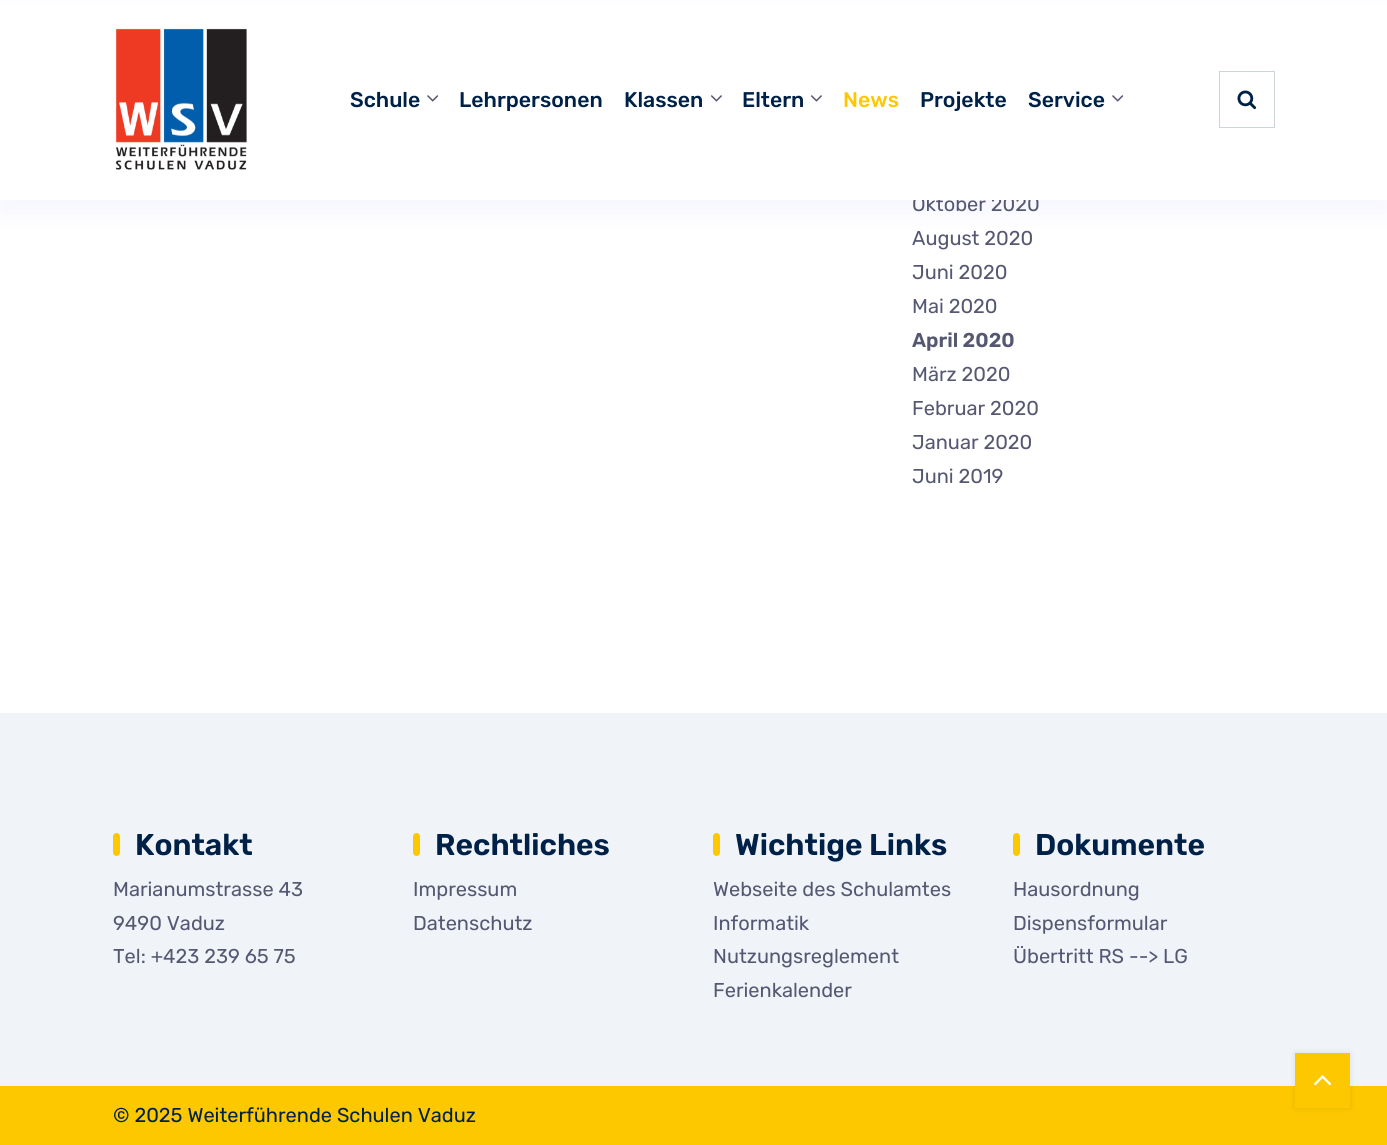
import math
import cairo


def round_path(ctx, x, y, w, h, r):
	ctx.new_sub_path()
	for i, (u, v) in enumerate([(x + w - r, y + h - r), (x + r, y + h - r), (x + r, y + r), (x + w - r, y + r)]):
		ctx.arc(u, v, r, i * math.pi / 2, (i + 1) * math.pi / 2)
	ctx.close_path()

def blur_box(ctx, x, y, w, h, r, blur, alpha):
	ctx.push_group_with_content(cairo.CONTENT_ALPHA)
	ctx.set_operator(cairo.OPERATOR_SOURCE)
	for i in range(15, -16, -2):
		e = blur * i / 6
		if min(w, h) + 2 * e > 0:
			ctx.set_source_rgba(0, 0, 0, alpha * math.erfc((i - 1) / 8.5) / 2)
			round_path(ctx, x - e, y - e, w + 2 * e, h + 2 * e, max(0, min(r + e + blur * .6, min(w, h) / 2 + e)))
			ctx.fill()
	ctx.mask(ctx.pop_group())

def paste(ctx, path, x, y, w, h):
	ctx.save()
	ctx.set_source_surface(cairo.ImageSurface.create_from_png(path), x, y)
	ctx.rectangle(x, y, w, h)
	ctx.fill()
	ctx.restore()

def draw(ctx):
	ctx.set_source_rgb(1, 1, 1)
	ctx.paint()
	ctx.set_source_rgb(0.18, 0.22, 0.863)
	blur_box(ctx, 0, 13, 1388, 200, 0, 12.5, 0.05)
	ctx.select_font_face('Rubik')
	ctx.set_font_size(20)
	ctx.set_source_rgb(0.337, 0.345, 0.447)
	ctx.move_to(912, 211)
	ctx.show_text('Oktober 2020')
	ctx.set_source_rgb(1, 1, 1)
	ctx.rectangle(0, 5, 1387, 195)
	ctx.fill()
	paste(ctx, 'media/1.png', 115, 28, 132, 142)
	ctx.select_font_face('Rubik Medium')
	ctx.set_font_size(21.25)
	ctx.set_source_rgb(0, 0.129, 0.278)
	ctx.move_to(350, 107)
	ctx.show_text('Schule')
	paste(ctx, 'media/2.png', 427, 95, 12, 7)
	ctx.move_to(459, 107)
	ctx.show_text('Lehrpersonen')
	ctx.move_to(624, 107)
	ctx.show_text('Klassen')
	paste(ctx, 'media/3.png', 710, 95, 12, 7)
	ctx.move_to(742, 107)
	ctx.show_text('Eltern')
	paste(ctx, 'media/3.png', 810, 95, 12, 7)
	ctx.set_source_rgb(0.992, 0.784, 0)
	ctx.move_to(843, 107)
	ctx.show_text('News')
	ctx.set_source_rgb(0, 0.129, 0.278)
	ctx.move_to(920, 107)
	ctx.show_text('Projekte')
	ctx.move_to(1028, 107)
	ctx.show_text('Service')
	paste(ctx, 'media/2.png', 1112, 95, 12, 7)
	ctx.rectangle(1219.5, 71.5, 55, 56)
	ctx.set_source_rgb(0.8, 0.827, 0.855)
	ctx.set_line_width(1)
	ctx.stroke()
	paste(ctx, 'media/4.png', 1237, 90, 20, 20)
	ctx.select_font_face('Rubik')
	ctx.set_font_size(20)
	ctx.set_source_rgb(0.337, 0.345, 0.447)
	for x, y, s in [
		(912, 245, 'August 2020'),
		(912, 279, 'Juni 2020'),
		(912, 313, 'Mai 2020'),
	]:
		ctx.move_to(x, y)
		ctx.show_text(s)
	ctx.select_font_face('Rubik SemiBold')
	ctx.move_to(912, 347)
	ctx.show_text('April 2020')
	ctx.select_font_face('Rubik')
	for x, y, s in [
		(912, 381, 'März 2020'),
		(912, 415, 'Februar 2020'),
		(912, 449, 'Januar 2020'),
		(912, 483, 'Juni 2019'),
	]:
		ctx.move_to(x, y)
		ctx.show_text(s)
	ctx.set_source_rgb(0.941, 0.957, 0.976)
	ctx.rectangle(0, 713, 1387, 373)
	ctx.fill()
	ctx.set_source_rgb(0.992, 0.784, 0)
	round_path(ctx, 113, 833, 7, 23, 3.5)
	ctx.fill()
	ctx.select_font_face('Rubik SemiBold')
	ctx.set_font_size(30)
	ctx.set_source_rgb(0, 0.129, 0.278)
	ctx.move_to(135, 855)
	ctx.show_text('Kontakt')
	ctx.select_font_face('Rubik')
	ctx.set_font_size(20)
	ctx.set_source_rgb(0.337, 0.345, 0.447)
	for x, y, s in [
		(113, 896, 'Marianumstrasse 43'),
		(113, 930, '9490 Vaduz'),
		(113, 963, 'Tel: +423 239 65 75'),
	]:
		ctx.move_to(x, y)
		ctx.show_text(s)
	ctx.set_source_rgb(0.992, 0.784, 0)
	round_path(ctx, 413, 833, 7, 23, 3.5)
	ctx.fill()
	ctx.select_font_face('Rubik SemiBold')
	ctx.set_font_size(30)
	ctx.set_source_rgb(0, 0.129, 0.278)
	ctx.move_to(435, 855)
	ctx.show_text('Rechtliches')
	ctx.select_font_face('Rubik')
	ctx.set_font_size(20)
	ctx.set_source_rgb(0.337, 0.345, 0.447)
	ctx.move_to(413, 896)
	ctx.show_text('Impressum')
	ctx.move_to(413, 930)
	ctx.show_text('Datenschutz')
	ctx.set_source_rgb(0.992, 0.784, 0)
	round_path(ctx, 713, 833, 7, 23, 3.5)
	ctx.fill()
	ctx.select_font_face('Rubik SemiBold')
	ctx.set_font_size(30)
	ctx.set_source_rgb(0, 0.129, 0.278)
	ctx.move_to(735, 855)
	ctx.show_text('Wichtige Links')
	ctx.select_font_face('Rubik')
	ctx.set_font_size(20)
	ctx.set_source_rgb(0.337, 0.345, 0.447)
	for x, y, s in [
		(713, 896, 'Webseite des Schulamtes'),
		(713, 930, 'Informatik'),
		(713, 963, 'Nutzungsreglement'),
		(713, 997, 'Ferienkalender'),
	]:
		ctx.move_to(x, y)
		ctx.show_text(s)
	ctx.set_source_rgb(0.992, 0.784, 0)
	round_path(ctx, 1013, 833, 7, 23, 3.5)
	ctx.fill()
	ctx.select_font_face('Rubik SemiBold')
	ctx.set_font_size(30)
	ctx.set_source_rgb(0, 0.129, 0.278)
	ctx.move_to(1035, 855)
	ctx.show_text('Dokumente')
	ctx.select_font_face('Rubik')
	ctx.set_font_size(20)
	ctx.set_source_rgb(0.337, 0.345, 0.447)
	for x, y, s in [
		(1013, 896, 'Hausordnung'),
		(1013, 930, 'Dispensformular'),
		(1013, 963, 'Übertritt RS --> LG'),
	]:
		ctx.move_to(x, y)
		ctx.show_text(s)
	ctx.set_source_rgb(0.992, 0.784, 0)
	ctx.rectangle(0, 1086, 1387, 59)
	ctx.fill()
	ctx.set_source_rgb(0, 0.129, 0.278)
	ctx.move_to(113, 1122)
	ctx.show_text('© 2025 Weiterführende Schulen Vaduz')
	ctx.set_source_rgb(0, 0, 0)
	blur_box(ctx, 1295, 1053, 55, 55, 0, 3, 0.1)
	ctx.set_source_rgb(0.992, 0.784, 0)
	ctx.rectangle(1295, 1053, 55, 55)
	ctx.fill()
	paste(ctx, 'media/5.png', 1313, 1075, 19, 11)


surface = cairo.ImageSurface(cairo.FORMAT_RGB24, 1387, 1145)
ctx = cairo.Context(surface)
options = cairo.FontOptions()
options.set_hint_metrics(cairo.HINT_METRICS_OFF)
options.set_hint_style(cairo.HINT_STYLE_NONE)
ctx.set_font_options(options)
ctx.set_miter_limit(4)
draw(ctx)
surface.write_to_png('image.png')
